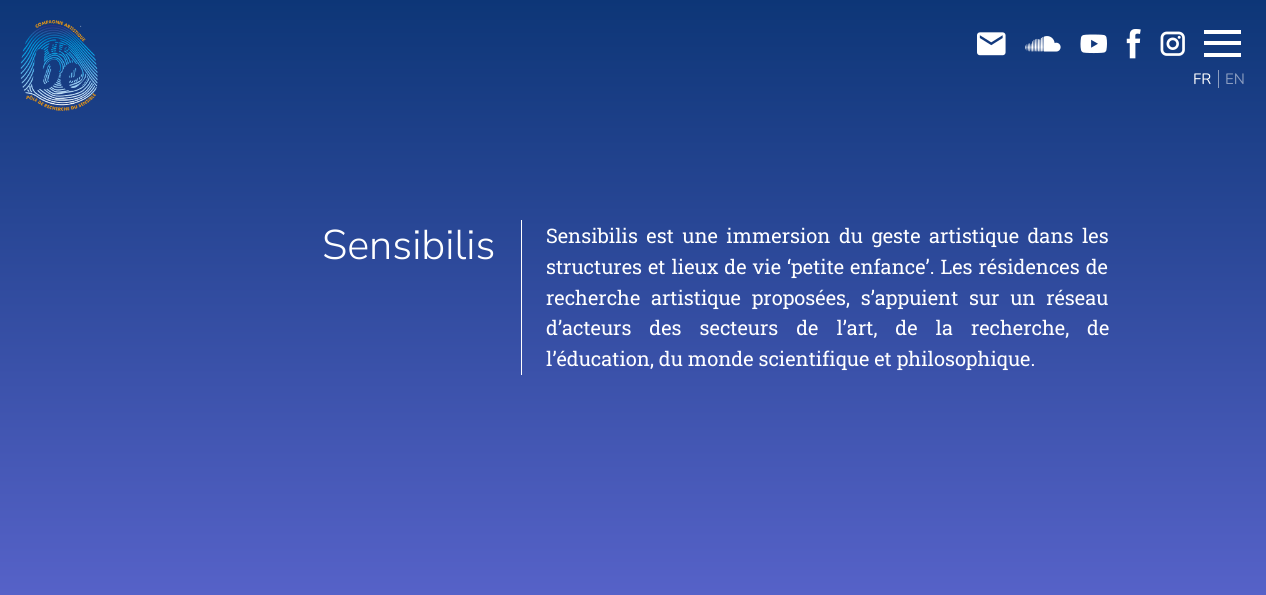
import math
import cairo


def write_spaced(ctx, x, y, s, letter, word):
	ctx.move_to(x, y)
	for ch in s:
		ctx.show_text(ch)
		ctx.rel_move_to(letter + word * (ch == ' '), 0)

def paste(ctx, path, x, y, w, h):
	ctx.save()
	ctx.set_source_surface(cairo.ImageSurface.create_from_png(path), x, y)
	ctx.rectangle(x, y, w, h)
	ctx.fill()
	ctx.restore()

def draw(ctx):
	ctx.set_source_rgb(1, 1, 1)
	ctx.paint()
	gradient = cairo.LinearGradient(633, 0, 633, 595)
	gradient.add_color_stop_rgba(0, 0.051, 0.212, 0.467, 1)
	gradient.add_color_stop_rgba(1, 0.337, 0.384, 0.784, 1)
	ctx.set_source(gradient)
	ctx.rectangle(0, 0, 1266, 595)
	ctx.fill()
	paste(ctx, 'media/1.png', 20, 20, 78, 91)
	paste(ctx, 'media/2.png', 977, 32, 29, 24)
	paste(ctx, 'media/3.png', 1025, 36, 36, 16)
	paste(ctx, 'media/4.png', 1080, 34, 27, 20)
	paste(ctx, 'media/5.png', 1126, 29, 15, 30)
	paste(ctx, 'media/6.png', 1160, 31, 25, 25)
	ctx.set_source_rgb(1, 1, 1)
	ctx.rectangle(1204, 30, 37, 4)
	ctx.rectangle(1204, 41, 37, 4)
	ctx.rectangle(1204, 53, 37, 4)
	ctx.fill()
	ctx.set_source_rgb(0.545, 0.616, 0.753)
	ctx.rectangle(1218, 70, 1, 18)
	ctx.fill()
	ctx.select_font_face('Nunito')
	ctx.set_font_size(15)
	ctx.set_source_rgb(1, 1, 1)
	ctx.move_to(1193, 84)
	ctx.show_text('FR')
	ctx.set_source_rgb(0.545, 0.616, 0.753)
	ctx.move_to(1225, 84)
	ctx.show_text('EN')
	ctx.select_font_face('Nunito Sans Light')
	ctx.set_font_size(41.5)
	ctx.set_source_rgb(1, 1, 1)
	ctx.move_to(322, 259)
	ctx.show_text('Sensibilis')
	ctx.rectangle(521, 220, 1, 155)
	ctx.fill()
	ctx.select_font_face('Roboto Slab')
	ctx.set_font_size(20)
	write_spaced(ctx, 546, 243, 'Sensibilis est une immersion du geste artistique dans les', 0, 3.5)
	write_spaced(ctx, 546, 274, 'structures et lieux de vie ‘petite enfance’. Les résidences de', 0, 1)
	write_spaced(ctx, 546, 305, 'recherche artistique proposées, s’appuient sur un réseau', 0, 5.75)
	write_spaced(ctx, 546, 335, 'd’acteurs des secteurs de l’art, de la recherche, de', 0, 13)
	ctx.move_to(546, 366)
	ctx.show_text('l’éducation, du monde scientifique et philosophique.')


surface = cairo.ImageSurface(cairo.FORMAT_RGB24, 1266, 595)
ctx = cairo.Context(surface)
options = cairo.FontOptions()
options.set_hint_metrics(cairo.HINT_METRICS_OFF)
options.set_hint_style(cairo.HINT_STYLE_NONE)
ctx.set_font_options(options)
ctx.set_miter_limit(4)
draw(ctx)
surface.write_to_png('image.png')
